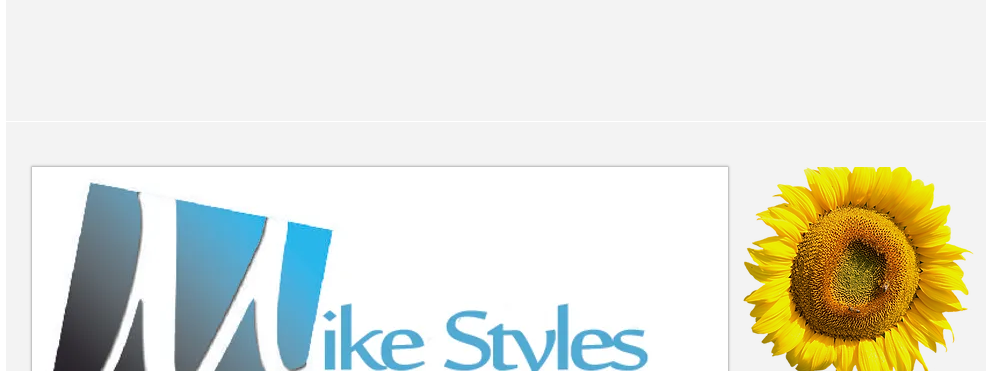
import math
import cairo


def round_path(ctx, x, y, w, h, r):
	ctx.new_sub_path()
	for i, (u, v) in enumerate([(x + w - r, y + h - r), (x + r, y + h - r), (x + r, y + r), (x + w - r, y + r)]):
		ctx.arc(u, v, r, i * math.pi / 2, (i + 1) * math.pi / 2)
	ctx.close_path()

def blur_box(ctx, x, y, w, h, r, blur, alpha):
	ctx.push_group_with_content(cairo.CONTENT_ALPHA)
	ctx.set_operator(cairo.OPERATOR_SOURCE)
	for i in range(15, -16, -2):
		e = blur * i / 6
		if min(w, h) + 2 * e > 0:
			ctx.set_source_rgba(0, 0, 0, alpha * math.erfc((i - 1) / 8.5) / 2)
			round_path(ctx, x - e, y - e, w + 2 * e, h + 2 * e, max(0, min(r + e + blur * .6, min(w, h) / 2 + e)))
			ctx.fill()
	ctx.mask(ctx.pop_group())

def paste(ctx, path, x, y, w, h):
	ctx.save()
	ctx.set_source_surface(cairo.ImageSurface.create_from_png(path), x, y)
	ctx.rectangle(x, y, w, h)
	ctx.fill()
	ctx.restore()

def draw(ctx):
	ctx.set_source_rgb(1, 1, 1)
	ctx.paint()
	ctx.set_source_rgb(0.953, 0.953, 0.953)
	ctx.rectangle(6, 0, 980, 121)
	ctx.fill()
	ctx.rectangle(6, 122, 980, 249)
	ctx.fill()
	ctx.set_source_rgb(0, 0, 0)
	blur_box(ctx, 32, 167, 696, 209, 0, 1.5, 0.5)
	paste(ctx, 'media/1.png', 32, 167, 696, 204)
	paste(ctx, 'media/2.png', 743, 167, 231, 204)


surface = cairo.ImageSurface(cairo.FORMAT_RGB24, 992, 371)
ctx = cairo.Context(surface)
options = cairo.FontOptions()
options.set_hint_metrics(cairo.HINT_METRICS_OFF)
options.set_hint_style(cairo.HINT_STYLE_NONE)
ctx.set_font_options(options)
ctx.set_miter_limit(4)
draw(ctx)
surface.write_to_png('image.png')
